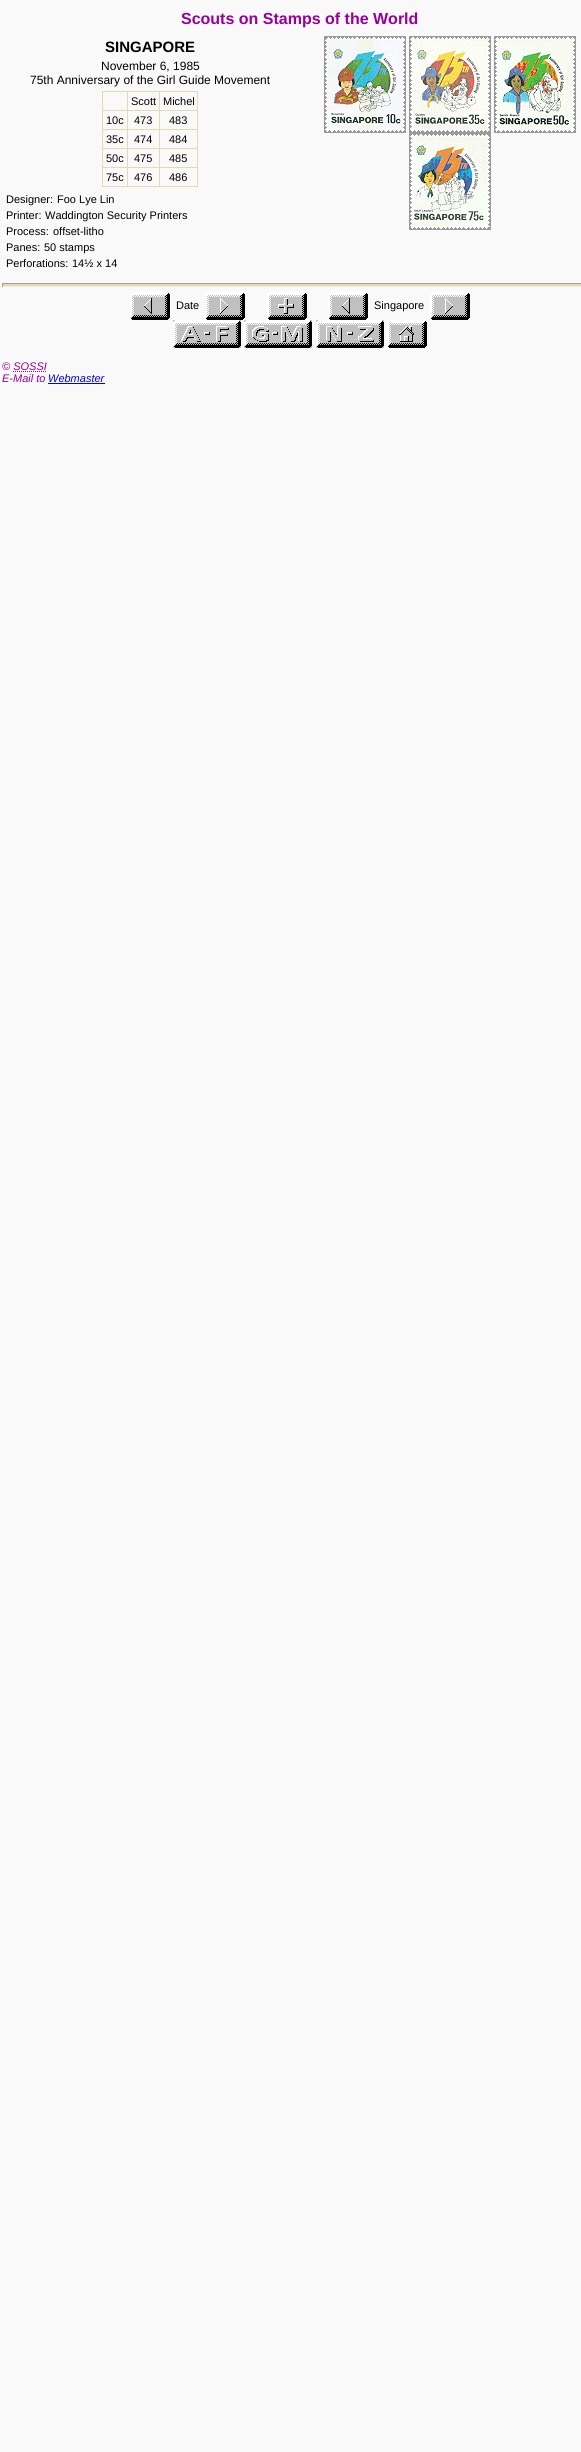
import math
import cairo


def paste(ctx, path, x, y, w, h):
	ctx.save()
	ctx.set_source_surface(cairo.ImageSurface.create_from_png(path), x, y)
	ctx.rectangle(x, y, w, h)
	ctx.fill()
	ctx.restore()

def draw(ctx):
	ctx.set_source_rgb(0.973, 0.973, 0.973)
	ctx.paint()
	ctx.select_font_face('Liberation Sans', cairo.FONT_SLANT_NORMAL, cairo.FONT_WEIGHT_BOLD)
	ctx.set_font_size(16)
	ctx.set_source_rgb(0.6, 0, 0.6)
	ctx.move_to(181, 24)
	ctx.show_text('Scouts on Stamps of the World')
	ctx.set_font_size(15)
	ctx.set_source_rgb(0, 0, 0)
	ctx.move_to(105, 52)
	ctx.show_text('SINGAPORE')
	ctx.select_font_face('Liberation Sans')
	ctx.set_font_size(12)
	ctx.move_to(101, 70)
	ctx.show_text('November 6, 1985')
	ctx.move_to(30, 84)
	ctx.show_text('75th Anniversary of the Girl Guide Movement')
	ctx.set_source_rgb(0.902, 0.851, 0.682)
	ctx.rectangle(102, 91, 96, 1)
	ctx.rectangle(197, 91, 1, 96)
	ctx.rectangle(102, 186, 96, 1)
	ctx.rectangle(102, 91, 1, 96)
	ctx.rectangle(159, 110, 39, 1)
	ctx.rectangle(159, 129, 39, 1)
	ctx.rectangle(159, 148, 39, 1)
	ctx.rectangle(159, 167, 39, 1)
	ctx.rectangle(159, 167, 1, 20)
	ctx.rectangle(127, 167, 33, 1)
	ctx.rectangle(159, 148, 1, 20)
	ctx.rectangle(127, 148, 33, 1)
	ctx.rectangle(159, 129, 1, 20)
	ctx.rectangle(127, 129, 33, 1)
	ctx.rectangle(159, 110, 1, 20)
	ctx.rectangle(127, 110, 33, 1)
	ctx.rectangle(127, 167, 1, 20)
	ctx.rectangle(102, 167, 26, 1)
	ctx.rectangle(127, 148, 1, 20)
	ctx.rectangle(102, 148, 26, 1)
	ctx.rectangle(127, 129, 1, 20)
	ctx.rectangle(102, 129, 26, 1)
	ctx.rectangle(127, 110, 1, 20)
	ctx.rectangle(102, 110, 26, 1)
	ctx.rectangle(127, 91, 1, 20)
	ctx.fill()
	ctx.set_font_size(11)
	ctx.set_source_rgb(0, 0, 0)
	ctx.move_to(131, 105)
	ctx.show_text('Scott')
	ctx.set_source_rgb(0.902, 0.851, 0.682)
	ctx.rectangle(159, 91, 1, 20)
	ctx.fill()
	ctx.set_source_rgb(0, 0, 0)
	for x, y, s in [
		(163, 105, 'Michel'),
		(106, 124, '10c'),
		(134, 124, '473'),
		(169, 124, '483'),
		(106, 143, '35c'),
		(134, 143, '474'),
		(169, 143, '484'),
		(106, 162, '50c'),
		(134, 162, '475'),
		(169, 162, '485'),
		(106, 181, '75c'),
		(134, 181, '476'),
		(169, 181, '486'),
		(6, 203, 'Designer:'),
		(57, 203, 'Foo Lye Lin'),
		(6, 219, 'Printer:'),
		(45, 219, 'Waddington Security Printers'),
		(6, 235, 'Process:'),
		(53, 235, 'offset-litho'),
		(6, 251, 'Panes:'),
		(44, 251, '50 stamps'),
		(6, 267, 'Perforations:'),
		(72, 267, '14½ x 14'),
	]:
		ctx.move_to(x, y)
		ctx.show_text(s)
	paste(ctx, 'media/1.png', 324, 36, 82, 97)
	paste(ctx, 'media/2.png', 409, 36, 82, 97)
	paste(ctx, 'media/3.png', 494, 36, 82, 97)
	paste(ctx, 'media/4.png', 409, 133, 82, 97)
	ctx.set_source_rgb(0.902, 0.851, 0.682)
	ctx.rectangle(2, 284, 579, 2)
	ctx.fill()
	ctx.set_source_rgb(0.624, 0.624, 0.624)
	ctx.rectangle(2, 283, 579, 1)
	ctx.fill()
	ctx.set_source_rgb(0.933, 0.933, 0.933)
	ctx.rectangle(2, 286, 579, 1)
	ctx.fill()
	ctx.set_source_rgb(0.624, 0.624, 0.624)
	ctx.rectangle(2, 283, 1, 4)
	ctx.fill()
	paste(ctx, 'media/5.png', 130, 292, 40, 28)
	ctx.set_source_rgb(0, 0, 0)
	ctx.move_to(176, 309)
	ctx.show_text('Date')
	paste(ctx, 'media/6.png', 205, 292, 40, 28)
	paste(ctx, 'media/7.png', 267, 292, 40, 28)
	paste(ctx, 'media/5.png', 328, 292, 40, 28)
	ctx.move_to(374, 309)
	ctx.show_text('Singapore')
	paste(ctx, 'media/6.png', 430, 292, 40, 28)
	paste(ctx, 'media/8.png', 173, 320, 68, 28)
	paste(ctx, 'media/9.png', 244, 320, 68, 28)
	paste(ctx, 'media/10.png', 316, 320, 68, 28)
	paste(ctx, 'media/11.png', 387, 320, 40, 28)
	ctx.select_font_face('Liberation Sans', cairo.FONT_SLANT_ITALIC)
	ctx.set_source_rgb(0.6, 0, 0.6)
	ctx.move_to(2, 370)
	ctx.show_text('© SOSSI')
	ctx.new_path()
	ctx.move_to(13, 371.5)
	ctx.line_to(47, 371.5)
	ctx.set_line_width(1)
	ctx.set_dash([1, 1])
	ctx.stroke()
	ctx.move_to(2, 382)
	ctx.show_text('E-Mail to')
	ctx.set_source_rgb(0, 0, 0.933)
	ctx.move_to(48, 382)
	ctx.show_text('Webmaster')
	ctx.rectangle(48, 383, 57, 1)
	ctx.fill()


surface = cairo.ImageSurface(cairo.FORMAT_RGB24, 581, 2452)
ctx = cairo.Context(surface)
options = cairo.FontOptions()
options.set_hint_metrics(cairo.HINT_METRICS_OFF)
options.set_hint_style(cairo.HINT_STYLE_NONE)
ctx.set_font_options(options)
ctx.set_miter_limit(4)
draw(ctx)
surface.write_to_png('image.png')
